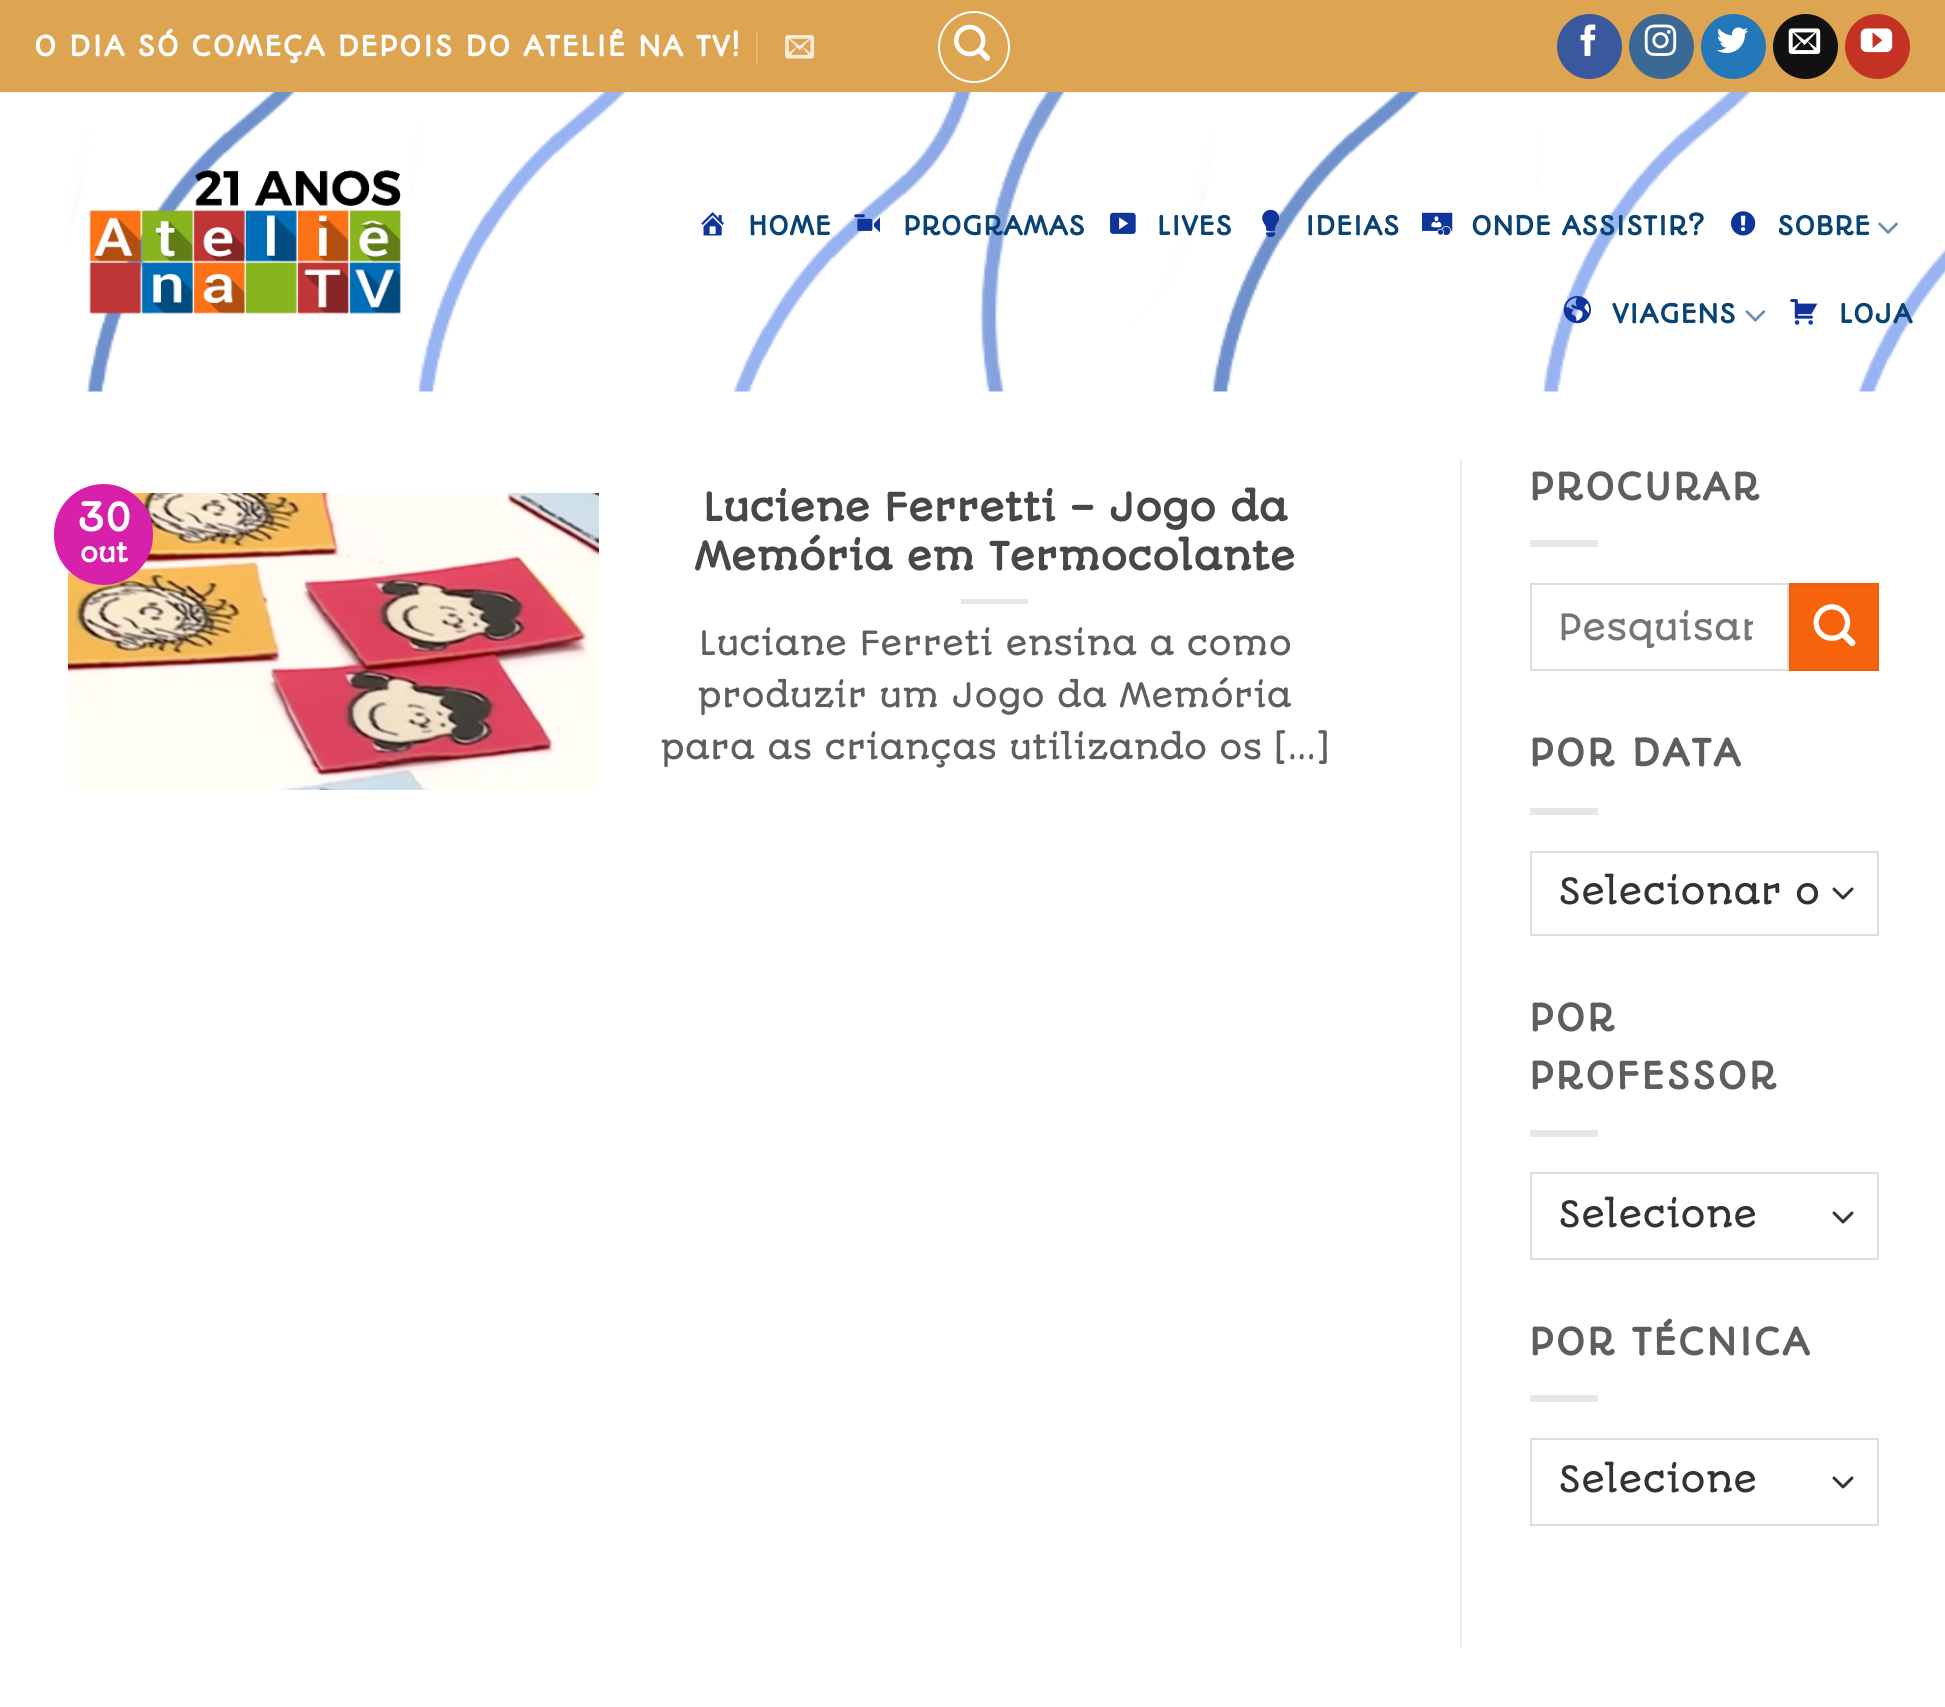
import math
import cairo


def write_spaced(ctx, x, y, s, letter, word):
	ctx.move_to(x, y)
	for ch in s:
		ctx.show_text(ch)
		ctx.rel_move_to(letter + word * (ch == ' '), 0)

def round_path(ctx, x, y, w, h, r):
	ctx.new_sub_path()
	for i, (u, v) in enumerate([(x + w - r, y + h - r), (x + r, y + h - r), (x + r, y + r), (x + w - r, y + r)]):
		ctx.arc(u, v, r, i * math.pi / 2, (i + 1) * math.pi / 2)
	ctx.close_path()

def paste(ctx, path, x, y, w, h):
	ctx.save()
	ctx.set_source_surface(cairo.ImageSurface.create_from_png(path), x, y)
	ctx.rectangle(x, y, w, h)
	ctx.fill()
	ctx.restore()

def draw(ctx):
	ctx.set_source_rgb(1, 1, 1)
	ctx.paint()
	ctx.set_source_rgb(0.867, 0.647, 0.322)
	ctx.rectangle(0, 0, 1945, 92)
	ctx.fill()
	ctx.select_font_face('Autour One', cairo.FONT_SLANT_NORMAL, cairo.FONT_WEIGHT_BOLD)
	ctx.set_font_size(27)
	ctx.set_source_rgb(1, 1, 1)
	write_spaced(ctx, 34, 56, 'O DIA SÓ COMEÇA DEPOIS DO ATELIÊ NA TV!', 1.35, 0)
	ctx.set_source_rgb(0.894, 0.718, 0.459)
	ctx.rectangle(756, 32, 2, 33)
	ctx.fill()
	paste(ctx, 'media/1.png', 785, 35, 30, 24)
	ctx.arc(974, 47, 35, 0, 2 * math.pi)
	ctx.set_source_rgb(1, 1, 1)
	ctx.stroke()
	paste(ctx, 'media/2.png', 954, 24, 36, 37)
	ctx.set_source_rgb(0.227, 0.345, 0.616)
	ctx.arc(1589.5, 46.5, 31.5, 0, 2 * math.pi)
	ctx.fill_preserve()
	ctx.stroke()
	paste(ctx, 'media/3.png', 1580, 24, 16, 32)
	ctx.set_source_rgb(0.231, 0.412, 0.58)
	ctx.arc(1661.5, 46.5, 31.5, 0, 2 * math.pi)
	ctx.fill_preserve()
	ctx.stroke()
	paste(ctx, 'media/4.png', 1644, 24, 33, 32)
	ctx.set_source_rgb(0.141, 0.471, 0.729)
	ctx.arc(1733.5, 46.5, 31.5, 0, 2 * math.pi)
	ctx.fill_preserve()
	ctx.stroke()
	paste(ctx, 'media/5.png', 1717, 27, 31, 26)
	ctx.set_source_rgb(0.067, 0.067, 0.067)
	ctx.arc(1805.5, 46.5, 31.5, 0, 2 * math.pi)
	ctx.fill_preserve()
	ctx.stroke()
	paste(ctx, 'media/6.png', 1788, 28, 33, 26)
	ctx.set_source_rgb(0.765, 0.196, 0.137)
	ctx.arc(1877.5, 46.5, 31.5, 0, 2 * math.pi)
	ctx.fill_preserve()
	ctx.stroke()
	paste(ctx, 'media/7.png', 1860, 28, 33, 25)
	paste(ctx, 'media/8.png', 64, 92, 1881, 300)
	paste(ctx, 'media/9.png', 89, 170, 312, 144)
	paste(ctx, 'media/10.png', 701, 212, 23, 24)
	ctx.set_font_size(25.25)
	ctx.set_source_rgb(0.039, 0.263, 0.455)
	write_spaced(ctx, 748, 235, 'HOME', 0.5, 0)
	paste(ctx, 'media/11.png', 854, 214, 26, 19)
	write_spaced(ctx, 903, 235, 'PROGRAMAS', 0.5, 0)
	paste(ctx, 'media/12.png', 1110, 212, 26, 22)
	write_spaced(ctx, 1157, 235, 'LIVES', 0.5, 0)
	paste(ctx, 'media/13.png', 1262, 209, 18, 28)
	write_spaced(ctx, 1305, 235, 'IDEIAS', 0.5, 0)
	paste(ctx, 'media/14.png', 1422, 212, 31, 24)
	write_spaced(ctx, 1471, 235, 'ONDE ASSISTIR?', 0.5, 0)
	paste(ctx, 'media/15.png', 1731, 211, 25, 25)
	write_spaced(ctx, 1777, 235, 'SOBRE', 0.5, 0)
	paste(ctx, 'media/16.png', 1878, 222, 20, 12)
	paste(ctx, 'media/17.png', 1563, 296, 28, 28)
	write_spaced(ctx, 1612, 323, 'VIAGENS', 0.5, 0)
	paste(ctx, 'media/18.png', 1745, 310, 21, 12)
	paste(ctx, 'media/19.png', 1790, 299, 28, 26)
	write_spaced(ctx, 1839, 323, 'LOJA', 0.5, 0)
	paste(ctx, 'media/20.png', 68, 493, 531, 297)
	ctx.set_font_size(37.25)
	ctx.set_source_rgb(0.278, 0.278, 0.278)
	ctx.move_to(703, 521)
	ctx.show_text('Luciene Ferretti – Jogo da')
	ctx.move_to(694, 570)
	ctx.show_text('Memória em Termocolante')
	ctx.set_source_rgb(0.902, 0.902, 0.902)
	ctx.rectangle(961, 599, 67, 5)
	ctx.fill()
	ctx.select_font_face('Autour One')
	ctx.set_font_size(32.4)
	ctx.set_source_rgb(0.369, 0.369, 0.369)
	for x, y, s in [
		(699, 655, 'Luciane Ferreti ensina a como'),
		(698, 707, 'produzir um Jogo da Memória'),
		(661, 759, 'para as crianças utilizando os [...]'),
	]:
		ctx.move_to(x, y)
		ctx.show_text(s)
	ctx.set_source_rgb(0.847, 0.129, 0.667)
	round_path(ctx, 54, 484, 99, 101, 49.5)
	ctx.fill()
	ctx.select_font_face('Autour One', cairo.FONT_SLANT_NORMAL, cairo.FONT_WEIGHT_BOLD)
	ctx.set_font_size(36)
	ctx.set_source_rgb(1, 1, 1)
	ctx.move_to(76, 531)
	ctx.show_text('30')
	ctx.set_font_size(25.25)
	ctx.move_to(80, 562)
	ctx.show_text('out')
	ctx.set_source_rgb(0.925, 0.925, 0.925)
	ctx.rectangle(1460, 459, 2, 1188)
	ctx.fill()
	ctx.set_font_size(36)
	ctx.set_source_rgb(0.369, 0.369, 0.369)
	write_spaced(ctx, 1529, 500, 'PROCURAR', 1.75, 0)
	ctx.set_source_rgb(0.902, 0.902, 0.902)
	ctx.rectangle(1530, 540, 68, 7)
	ctx.fill()
	ctx.rectangle(1531, 584, 257, 86)
	ctx.set_source_rgb(0.867, 0.867, 0.867)
	ctx.stroke()
	ctx.save()
	ctx.rectangle(1557, 605, 196, 43)
	ctx.clip()
	ctx.select_font_face('Autour One')
	ctx.set_font_size(35)
	ctx.set_source_rgb(0.459, 0.459, 0.459)
	ctx.move_to(1558, 640)
	ctx.show_text('Pesquisar')
	ctx.restore()
	ctx.set_source_rgb(0.965, 0.388, 0.051)
	ctx.rectangle(1790, 584, 88, 86)
	ctx.fill_preserve()
	ctx.set_source_rgb(0.918, 0.369, 0.047)
	ctx.stroke()
	paste(ctx, 'media/21.png', 1813, 604, 43, 43)
	ctx.set_source_rgb(0.369, 0.369, 0.369)
	write_spaced(ctx, 1529, 766, 'POR DATA', 1.75, 0)
	ctx.set_source_rgb(0.902, 0.902, 0.902)
	ctx.rectangle(1530, 808, 68, 7)
	ctx.fill()
	ctx.new_path()
	ctx.move_to(1834, 889)
	ctx.line_to(1843, 898)
	ctx.line_to(1852, 889)
	ctx.set_source_rgb(0.2, 0.2, 0.2)
	ctx.set_line_width(3)
	ctx.set_line_cap(cairo.LINE_CAP_ROUND)
	ctx.set_line_join(cairo.LINE_JOIN_ROUND)
	ctx.stroke()
	ctx.rectangle(1531, 852, 347, 83)
	ctx.set_source_rgb(0.867, 0.867, 0.867)
	ctx.set_line_width(2)
	ctx.set_line_cap(cairo.LINE_CAP_BUTT)
	ctx.set_line_join(cairo.LINE_JOIN_MITER)
	ctx.stroke()
	ctx.select_font_face('Autour One')
	ctx.set_font_size(35)
	ctx.set_source_rgb(0.2, 0.2, 0.2)
	ctx.move_to(1558, 904)
	ctx.show_text('Selecionar o')
	ctx.select_font_face('Autour One', cairo.FONT_SLANT_NORMAL, cairo.FONT_WEIGHT_BOLD)
	ctx.set_font_size(36)
	ctx.set_source_rgb(0.369, 0.369, 0.369)
	write_spaced(ctx, 1529, 1031, 'POR', 1.75, 0)
	write_spaced(ctx, 1529, 1089, 'PROFESSOR', 1.75, 0)
	ctx.set_source_rgb(0.902, 0.902, 0.902)
	ctx.rectangle(1530, 1130, 68, 7)
	ctx.fill()
	ctx.new_path()
	ctx.move_to(1834, 1213)
	ctx.line_to(1843, 1222)
	ctx.line_to(1852, 1213)
	ctx.set_source_rgb(0.2, 0.2, 0.2)
	ctx.set_line_width(3)
	ctx.set_line_cap(cairo.LINE_CAP_ROUND)
	ctx.set_line_join(cairo.LINE_JOIN_ROUND)
	ctx.stroke()
	ctx.rectangle(1531, 1173, 347, 86)
	ctx.set_source_rgb(0.867, 0.867, 0.867)
	ctx.set_line_width(2)
	ctx.set_line_cap(cairo.LINE_CAP_BUTT)
	ctx.set_line_join(cairo.LINE_JOIN_MITER)
	ctx.stroke()
	ctx.select_font_face('Autour One')
	ctx.set_font_size(35)
	ctx.set_source_rgb(0.2, 0.2, 0.2)
	ctx.move_to(1558, 1227)
	ctx.show_text('Selecione')
	ctx.select_font_face('Autour One', cairo.FONT_SLANT_NORMAL, cairo.FONT_WEIGHT_BOLD)
	ctx.set_font_size(36)
	ctx.set_source_rgb(0.369, 0.369, 0.369)
	write_spaced(ctx, 1529, 1355, 'POR TÉCNICA', 1.75, 0)
	ctx.set_source_rgb(0.902, 0.902, 0.902)
	ctx.rectangle(1530, 1395, 68, 7)
	ctx.fill()
	ctx.new_path()
	ctx.move_to(1834, 1478)
	ctx.line_to(1843, 1487)
	ctx.line_to(1852, 1478)
	ctx.set_source_rgb(0.2, 0.2, 0.2)
	ctx.set_line_width(3)
	ctx.set_line_cap(cairo.LINE_CAP_ROUND)
	ctx.set_line_join(cairo.LINE_JOIN_ROUND)
	ctx.stroke()
	ctx.rectangle(1531, 1439, 347, 86)
	ctx.set_source_rgb(0.867, 0.867, 0.867)
	ctx.set_line_width(2)
	ctx.set_line_cap(cairo.LINE_CAP_BUTT)
	ctx.set_line_join(cairo.LINE_JOIN_MITER)
	ctx.stroke()
	ctx.select_font_face('Autour One')
	ctx.set_font_size(35)
	ctx.set_source_rgb(0.2, 0.2, 0.2)
	ctx.move_to(1558, 1492)
	ctx.show_text('Selecione')


surface = cairo.ImageSurface(cairo.FORMAT_RGB24, 1945, 1707)
ctx = cairo.Context(surface)
options = cairo.FontOptions()
options.set_hint_metrics(cairo.HINT_METRICS_OFF)
options.set_hint_style(cairo.HINT_STYLE_NONE)
ctx.set_font_options(options)
ctx.set_miter_limit(4)
draw(ctx)
surface.write_to_png('image.png')
